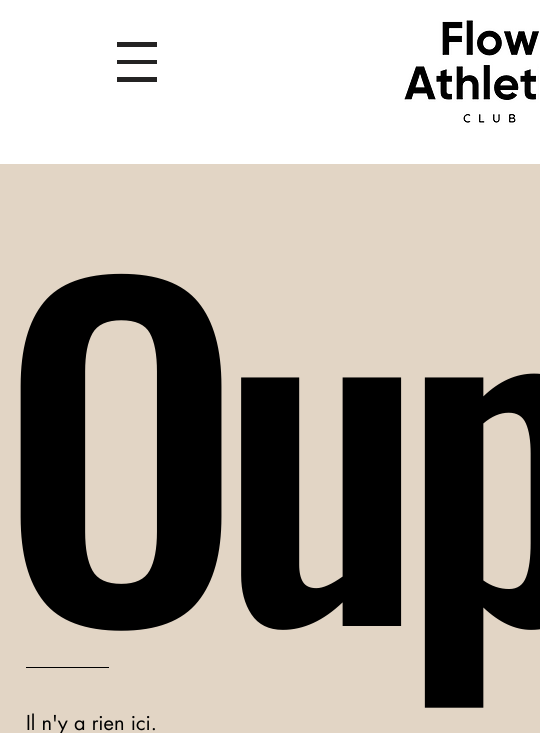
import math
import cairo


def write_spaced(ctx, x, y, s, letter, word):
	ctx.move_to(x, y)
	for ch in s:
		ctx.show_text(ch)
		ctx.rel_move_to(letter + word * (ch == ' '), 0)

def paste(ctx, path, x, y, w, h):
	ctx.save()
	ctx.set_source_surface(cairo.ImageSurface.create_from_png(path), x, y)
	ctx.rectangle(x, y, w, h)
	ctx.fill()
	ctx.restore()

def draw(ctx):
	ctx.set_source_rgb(0.886, 0.835, 0.773)
	ctx.paint()
	ctx.set_source_rgb(1, 1, 1)
	ctx.rectangle(0, 0, 540, 164)
	ctx.fill()
	ctx.set_source_rgb(0.141, 0.137, 0.137)
	ctx.rectangle(117, 77, 40, 5)
	ctx.rectangle(117, 42, 40, 5)
	ctx.rectangle(117, 60, 40, 4)
	ctx.fill()
	paste(ctx, 'media/1.png', 404, 20, 135, 105)
	ctx.select_font_face('Oswald Medium')
	ctx.set_font_size(430)
	ctx.set_source_rgb(0, 0, 0)
	write_spaced(ctx, 0, 626, 'Oup', -21.5, 0)
	ctx.rectangle(26, 667, 83, 1)
	ctx.fill()
	ctx.select_font_face('futura')
	ctx.set_font_size(20)
	ctx.move_to(26, 730)
	ctx.show_text('Il n\'y a rien ici.')


surface = cairo.ImageSurface(cairo.FORMAT_RGB24, 540, 733)
ctx = cairo.Context(surface)
options = cairo.FontOptions()
options.set_hint_metrics(cairo.HINT_METRICS_OFF)
options.set_hint_style(cairo.HINT_STYLE_NONE)
ctx.set_font_options(options)
ctx.set_miter_limit(4)
draw(ctx)
surface.write_to_png('image.png')
